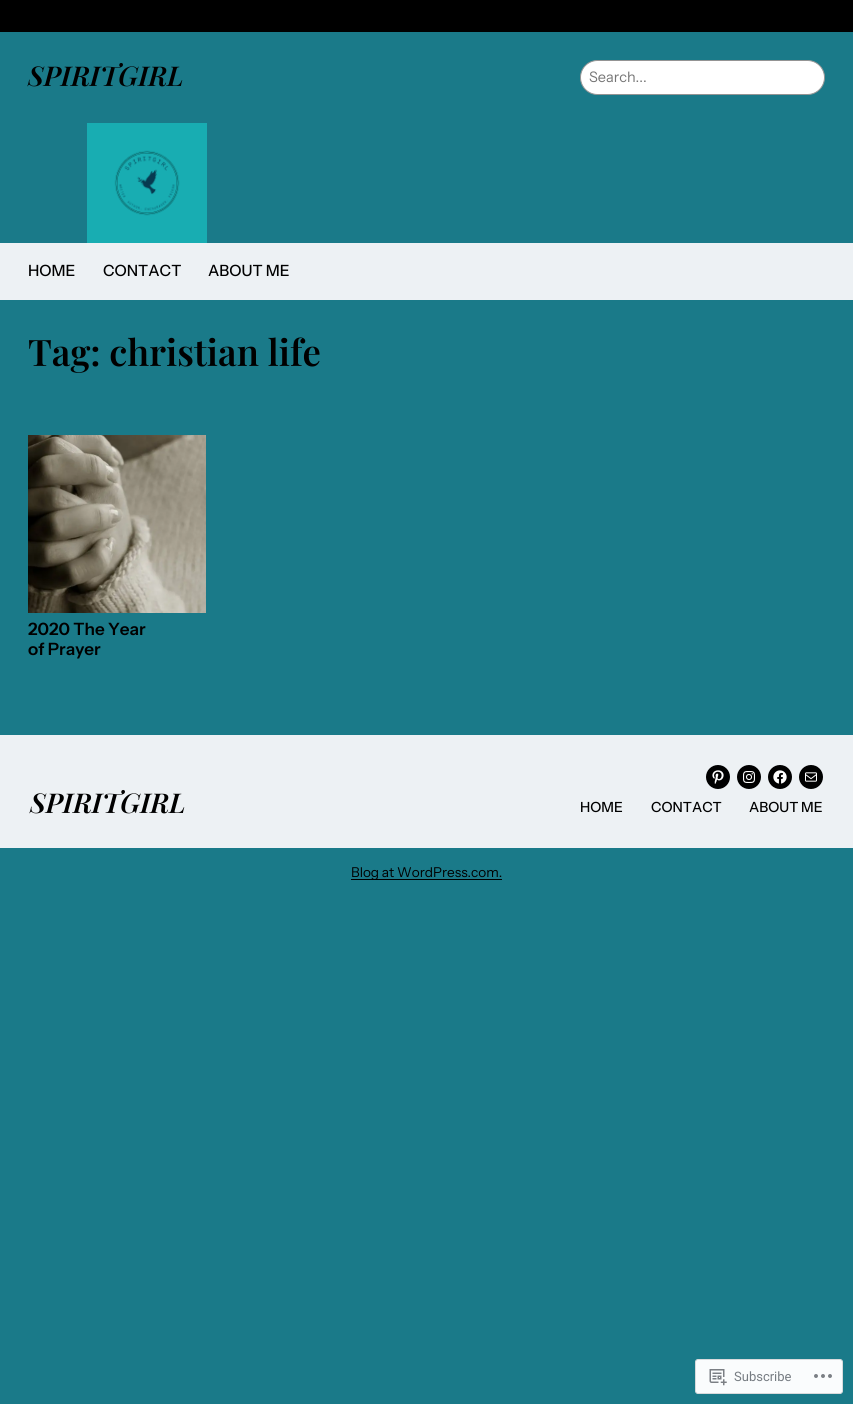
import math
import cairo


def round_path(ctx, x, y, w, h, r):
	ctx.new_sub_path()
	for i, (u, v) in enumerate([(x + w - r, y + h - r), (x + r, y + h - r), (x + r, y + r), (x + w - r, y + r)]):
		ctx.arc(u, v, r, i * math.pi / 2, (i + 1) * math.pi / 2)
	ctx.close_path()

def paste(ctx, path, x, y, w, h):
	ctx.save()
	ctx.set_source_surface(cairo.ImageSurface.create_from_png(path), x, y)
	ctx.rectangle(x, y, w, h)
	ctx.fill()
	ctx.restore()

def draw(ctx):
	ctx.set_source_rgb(0.102, 0.478, 0.537)
	ctx.paint()
	ctx.set_source_rgb(0, 0, 0)
	ctx.rectangle(0, 0, 853, 32)
	ctx.fill()
	ctx.select_font_face('Playfair Display SemiBold', cairo.FONT_SLANT_ITALIC)
	ctx.set_font_size(27.25)
	ctx.move_to(28, 86)
	ctx.show_text('SPIRITGIRL')
	ctx.set_source_rgb(1, 1, 1)
	round_path(ctx, 580.5, 60.5, 244, 34, 17)
	ctx.fill_preserve()
	ctx.set_source_rgb(0.58, 0.58, 0.58)
	ctx.set_line_width(1)
	ctx.stroke()
	ctx.select_font_face('Instrument Sans')
	ctx.set_font_size(14.5)
	ctx.set_source_rgb(0.459, 0.459, 0.459)
	ctx.move_to(589, 82)
	ctx.show_text('Search...')
	paste(ctx, 'media/1.png', 87, 123, 120, 120)
	ctx.set_source_rgb(0.929, 0.945, 0.957)
	ctx.rectangle(0, 243, 853, 57)
	ctx.fill()
	ctx.select_font_face('Instrument Sans Medium')
	ctx.set_font_size(15.5)
	ctx.set_source_rgb(0, 0, 0)
	for x, y, s in [
		(28, 276, 'HOME'),
		(103, 276, 'CONTACT'),
		(208, 276, 'ABOUT ME'),
	]:
		ctx.move_to(x, y)
		ctx.show_text(s)
	ctx.select_font_face('Playfair Display SemiBold')
	ctx.set_font_size(36.5)
	ctx.move_to(28, 366)
	ctx.show_text('Tag: christian life')
	paste(ctx, 'media/2.png', 28, 435, 178, 178)
	ctx.select_font_face('Instrument Sans SemiBold')
	ctx.set_font_size(17)
	ctx.move_to(28, 635)
	ctx.show_text('2020 The Year')
	ctx.move_to(28, 655)
	ctx.show_text('of Prayer')
	ctx.set_source_rgb(0.929, 0.945, 0.957)
	ctx.rectangle(0, 735, 853, 113)
	ctx.fill()
	ctx.select_font_face('Playfair Display SemiBold', cairo.FONT_SLANT_ITALIC)
	ctx.set_font_size(27.25)
	ctx.set_source_rgb(0, 0, 0)
	ctx.move_to(30, 813)
	ctx.show_text('SPIRITGIRL')
	ctx.new_path()
	ctx.arc(718, 777, 12, 0, 2 * math.pi)
	ctx.fill()
	paste(ctx, 'media/3.png', 712, 770, 12, 14)
	ctx.arc(749, 777, 12, 0, 2 * math.pi)
	ctx.fill()
	paste(ctx, 'media/4.png', 743, 771, 12, 12)
	ctx.arc(780, 777, 12, 0, 2 * math.pi)
	ctx.fill()
	paste(ctx, 'media/5.png', 773, 770, 14, 14)
	ctx.arc(811, 777, 12, 0, 2 * math.pi)
	ctx.fill()
	paste(ctx, 'media/6.png', 805, 772, 12, 10)
	ctx.select_font_face('Instrument Sans Medium')
	ctx.set_font_size(14)
	for x, y, s in [
		(580, 812, 'HOME'),
		(651, 812, 'CONTACT'),
		(749, 812, 'ABOUT ME'),
	]:
		ctx.move_to(x, y)
		ctx.show_text(s)
	ctx.rectangle(351, 879, 151, 1)
	ctx.fill()
	ctx.select_font_face('Instrument Sans')
	ctx.set_font_size(13.6)
	ctx.move_to(351, 877)
	ctx.show_text('Blog at WordPress.com.')
	ctx.set_source_rgb(0.98, 0.988, 0.992)
	round_path(ctx, 695.5, 1359.5, 147, 34, 2.5)
	ctx.fill_preserve()
	ctx.set_source_rgb(0.847, 0.855, 0.863)
	ctx.stroke()
	paste(ctx, 'media/7.png', 709, 1369, 18, 17)
	ctx.select_font_face('Roboto')
	ctx.set_font_size(13)
	ctx.set_source_rgb(0.463, 0.486, 0.51)
	ctx.move_to(734, 1381)
	ctx.show_text('Subscribe')
	paste(ctx, 'media/8.png', 814, 1374, 18, 4)


surface = cairo.ImageSurface(cairo.FORMAT_RGB24, 853, 1404)
ctx = cairo.Context(surface)
options = cairo.FontOptions()
options.set_hint_metrics(cairo.HINT_METRICS_OFF)
options.set_hint_style(cairo.HINT_STYLE_NONE)
ctx.set_font_options(options)
ctx.set_miter_limit(4)
draw(ctx)
surface.write_to_png('image.png')
